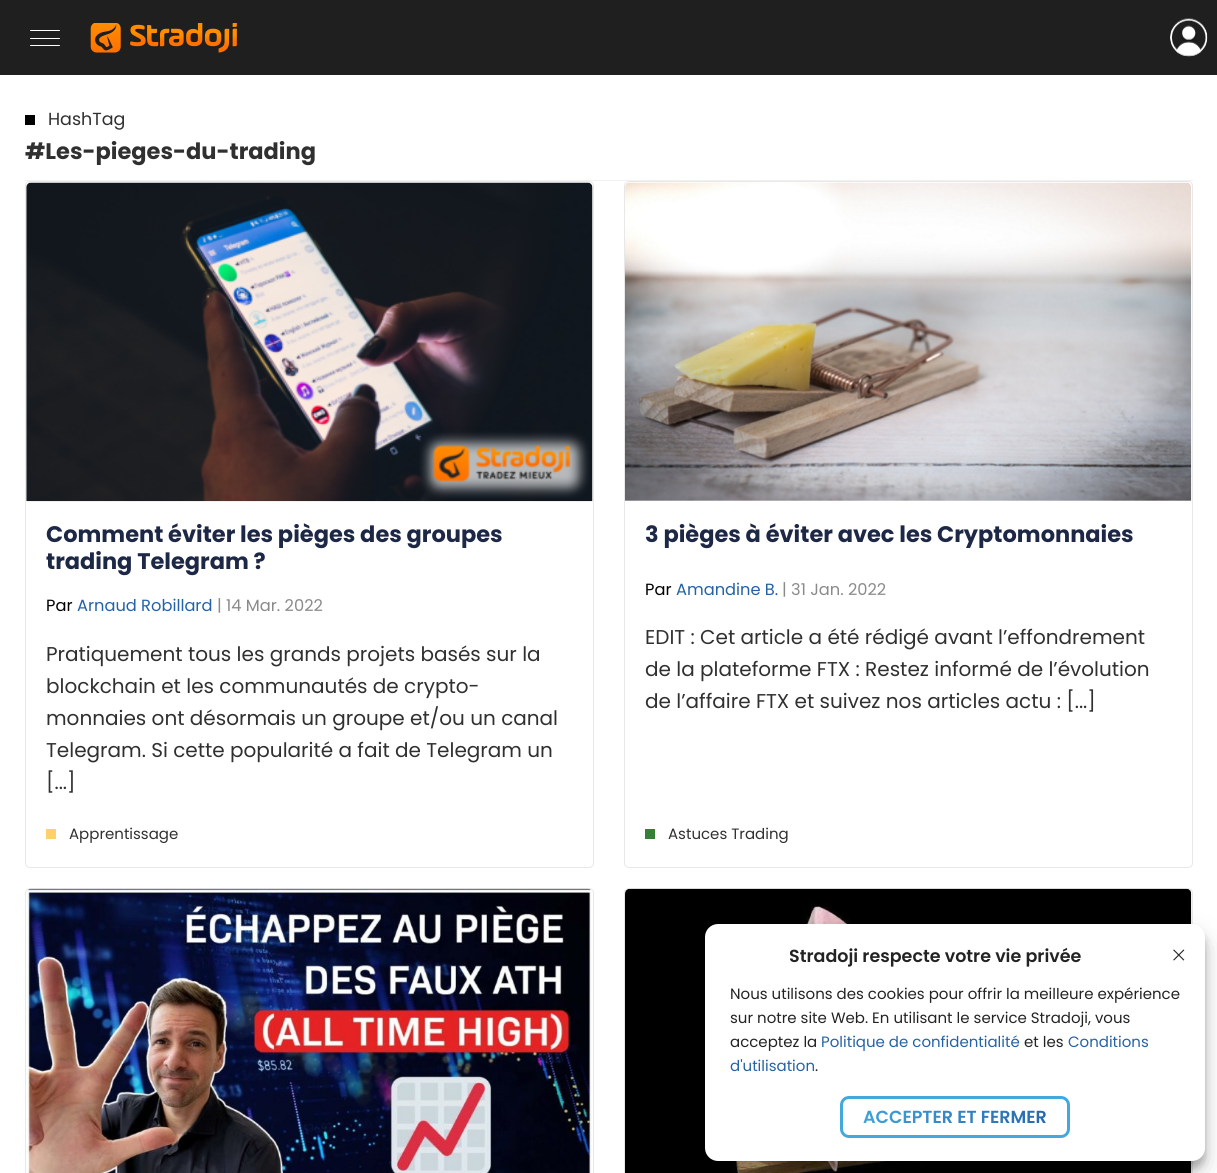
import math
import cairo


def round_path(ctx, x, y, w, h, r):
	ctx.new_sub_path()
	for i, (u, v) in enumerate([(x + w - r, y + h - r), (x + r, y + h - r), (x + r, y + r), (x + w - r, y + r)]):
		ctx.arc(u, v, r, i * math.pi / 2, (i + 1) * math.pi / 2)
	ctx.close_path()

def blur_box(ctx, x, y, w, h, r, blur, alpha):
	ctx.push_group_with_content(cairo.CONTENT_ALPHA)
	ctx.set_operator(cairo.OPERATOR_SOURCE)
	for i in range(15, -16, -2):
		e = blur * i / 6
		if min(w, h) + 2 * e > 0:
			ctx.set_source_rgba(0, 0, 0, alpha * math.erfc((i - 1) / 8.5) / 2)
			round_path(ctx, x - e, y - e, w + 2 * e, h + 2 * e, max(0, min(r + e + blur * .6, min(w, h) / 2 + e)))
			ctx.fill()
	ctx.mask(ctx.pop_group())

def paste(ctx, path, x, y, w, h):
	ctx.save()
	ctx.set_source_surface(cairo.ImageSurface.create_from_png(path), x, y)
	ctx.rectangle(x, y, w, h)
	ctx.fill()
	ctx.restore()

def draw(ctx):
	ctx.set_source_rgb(1, 1, 1)
	ctx.paint()
	ctx.set_source_rgb(0.122, 0.122, 0.122)
	ctx.rectangle(0, 0, 1217, 75)
	ctx.fill()
	ctx.set_source_rgb(1, 1, 1)
	round_path(ctx, 30, 30, 30, 1, 0.5)
	ctx.fill()
	round_path(ctx, 30, 38, 30, 1, 0.5)
	ctx.fill()
	round_path(ctx, 30, 45, 30, 1, 0.5)
	ctx.fill()
	paste(ctx, 'media/1.png', 90, 23, 147, 30)
	paste(ctx, 'media/2.png', 1170, 18, 38, 39)
	ctx.set_source_rgb(0.945, 0.945, 0.945)
	ctx.rectangle(25, 180, 1168, 1)
	ctx.fill()
	ctx.set_source_rgb(0, 0, 0)
	ctx.rectangle(25, 115, 10, 10)
	ctx.fill()
	ctx.select_font_face('Poppins')
	ctx.set_font_size(17.5)
	ctx.set_source_rgb(0.188, 0.188, 0.188)
	ctx.move_to(48, 125)
	ctx.show_text('HashTag')
	ctx.select_font_face('Poppins', cairo.FONT_SLANT_NORMAL, cairo.FONT_WEIGHT_BOLD)
	ctx.set_font_size(22.5)
	ctx.move_to(25, 159)
	ctx.show_text('#Les-pieges-du-trading')
	round_path(ctx, 25.5, 181.5, 568, 686, 4.5)
	ctx.set_source_rgb(0.91, 0.91, 0.91)
	ctx.set_line_width(1)
	ctx.stroke()
	paste(ctx, 'media/3.png', 26, 182, 567, 320)
	ctx.set_source_rgb(0.114, 0.153, 0.275)
	ctx.move_to(46, 542)
	ctx.show_text('Comment éviter les pièges des groupes')
	ctx.move_to(46, 569)
	ctx.show_text('trading Telegram ?')
	ctx.select_font_face('Poppins')
	ctx.set_font_size(16.25)
	ctx.set_source_rgb(0, 0, 0)
	ctx.move_to(46, 611)
	ctx.show_text('Par')
	ctx.set_source_rgb(0.137, 0.384, 0.655)
	ctx.move_to(77, 611)
	ctx.show_text('Arnaud Robillard')
	ctx.set_source_rgb(0.545, 0.541, 0.541)
	ctx.move_to(217, 611)
	ctx.show_text('| 14 Mar. 2022')
	ctx.set_font_size(20)
	ctx.set_source_rgb(0.188, 0.188, 0.188)
	for x, y, s in [
		(46, 661, 'Pratiquement tous les grands projets basés sur la'),
		(46, 693, 'blockchain et les communautés de crypto-'),
		(46, 725, 'monnaies ont désormais un groupe et/ou un canal'),
		(46, 757, 'Telegram. Si cette popularité a fait de Telegram un'),
		(46, 789, '[...]'),
	]:
		ctx.move_to(x, y)
		ctx.show_text(s)
	ctx.set_source_rgb(1, 0.82, 0.4)
	ctx.rectangle(46, 829, 10, 10)
	ctx.fill()
	ctx.set_font_size(15)
	ctx.set_source_rgb(0.188, 0.188, 0.188)
	ctx.move_to(69, 839)
	ctx.show_text('Apprentissage')
	round_path(ctx, 624.5, 181.5, 568, 686, 4.5)
	ctx.set_source_rgb(0.91, 0.91, 0.91)
	ctx.stroke()
	paste(ctx, 'media/4.png', 625, 182, 567, 319)
	ctx.select_font_face('Poppins', cairo.FONT_SLANT_NORMAL, cairo.FONT_WEIGHT_BOLD)
	ctx.set_font_size(22.5)
	ctx.set_source_rgb(0.114, 0.153, 0.275)
	ctx.move_to(645, 542)
	ctx.show_text('3 pièges à éviter avec les Cryptomonnaies')
	ctx.select_font_face('Poppins')
	ctx.set_font_size(16.25)
	ctx.set_source_rgb(0, 0, 0)
	ctx.move_to(645, 595)
	ctx.show_text('Par')
	ctx.set_source_rgb(0.137, 0.384, 0.655)
	ctx.move_to(676, 595)
	ctx.show_text('Amandine B.')
	ctx.set_source_rgb(0.545, 0.541, 0.541)
	ctx.move_to(782, 595)
	ctx.show_text('| 31 Jan. 2022')
	ctx.set_font_size(20)
	ctx.set_source_rgb(0.188, 0.188, 0.188)
	for x, y, s in [
		(645, 644, 'EDIT : Cet article a été rédigé avant l’effondrement'),
		(645, 676, 'de la plateforme FTX : Restez informé de l’évolution'),
		(645, 708, 'de l’affaire FTX et suivez nos articles actu : [...]'),
	]:
		ctx.move_to(x, y)
		ctx.show_text(s)
	ctx.set_source_rgb(0.212, 0.498, 0.212)
	ctx.rectangle(645, 829, 10, 10)
	ctx.fill()
	ctx.set_font_size(15)
	ctx.set_source_rgb(0.188, 0.188, 0.188)
	ctx.move_to(668, 839)
	ctx.show_text('Astuces Trading')
	round_path(ctx, 25.5, 888.5, 568, 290, 4.5)
	ctx.set_source_rgb(0.91, 0.91, 0.91)
	ctx.stroke()
	paste(ctx, 'media/5.png', 26, 888, 566, 285)
	round_path(ctx, 624.5, 888.5, 568, 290, 4.5)
	ctx.stroke()
	paste(ctx, 'media/6.png', 625, 888, 567, 285)
	ctx.set_source_rgb(0, 0, 0)
	blur_box(ctx, 705, 931, 500, 238, 13, 4, 0.23)
	blur_box(ctx, 705, 936, 500, 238, 13, 12.5, 0.19)
	ctx.set_source_rgb(1, 1, 1)
	round_path(ctx, 705, 924, 500, 237, 13)
	ctx.fill()
	ctx.select_font_face('Poppins SemiBold')
	ctx.set_font_size(17.5)
	ctx.set_source_rgb(0.137, 0.137, 0.137)
	ctx.move_to(789, 962)
	ctx.show_text('Stradoji respecte votre vie privée')
	paste(ctx, 'media/7.png', 1173, 949, 12, 12)
	ctx.select_font_face('Poppins')
	ctx.set_font_size(15)
	for x, y, s in [
		(730, 999, 'Nous utilisons des cookies pour offrir la meilleure expérience'),
		(730, 1023, 'sur notre site Web. En utilisant le service Stradoji, vous'),
		(730, 1047, 'acceptez la'),
	]:
		ctx.move_to(x, y)
		ctx.show_text(s)
	ctx.set_source_rgb(0.137, 0.384, 0.655)
	ctx.move_to(821, 1047)
	ctx.show_text('Politique de confidentialité')
	ctx.set_source_rgb(0.137, 0.137, 0.137)
	ctx.move_to(1024, 1047)
	ctx.show_text('et les')
	ctx.set_source_rgb(0.137, 0.384, 0.655)
	ctx.move_to(1068, 1047)
	ctx.show_text('Conditions')
	ctx.move_to(730, 1071)
	ctx.show_text('d\'utilisation')
	ctx.set_source_rgb(0.137, 0.137, 0.137)
	ctx.move_to(815, 1071)
	ctx.show_text('.')
	round_path(ctx, 841.5, 1097.5, 227, 39, 7.5)
	ctx.set_source_rgb(0.263, 0.663, 0.867)
	ctx.set_line_width(3)
	ctx.stroke()
	ctx.select_font_face('Poppins SemiBold')
	ctx.set_font_size(17.5)
	gradient = cairo.LinearGradient(841, 1117, 1069, 1117)
	gradient.add_color_stop_rgba(0, 0.263, 0.663, 0.867, 1)
	gradient.add_color_stop_rgba(1, 0.137, 0.384, 0.655, 1)
	ctx.set_source(gradient)
	ctx.move_to(863, 1123)
	ctx.show_text('ACCEPTER ET FERMER')


surface = cairo.ImageSurface(cairo.FORMAT_RGB24, 1217, 1173)
ctx = cairo.Context(surface)
options = cairo.FontOptions()
options.set_hint_metrics(cairo.HINT_METRICS_OFF)
options.set_hint_style(cairo.HINT_STYLE_NONE)
ctx.set_font_options(options)
ctx.set_miter_limit(4)
draw(ctx)
surface.write_to_png('image.png')
